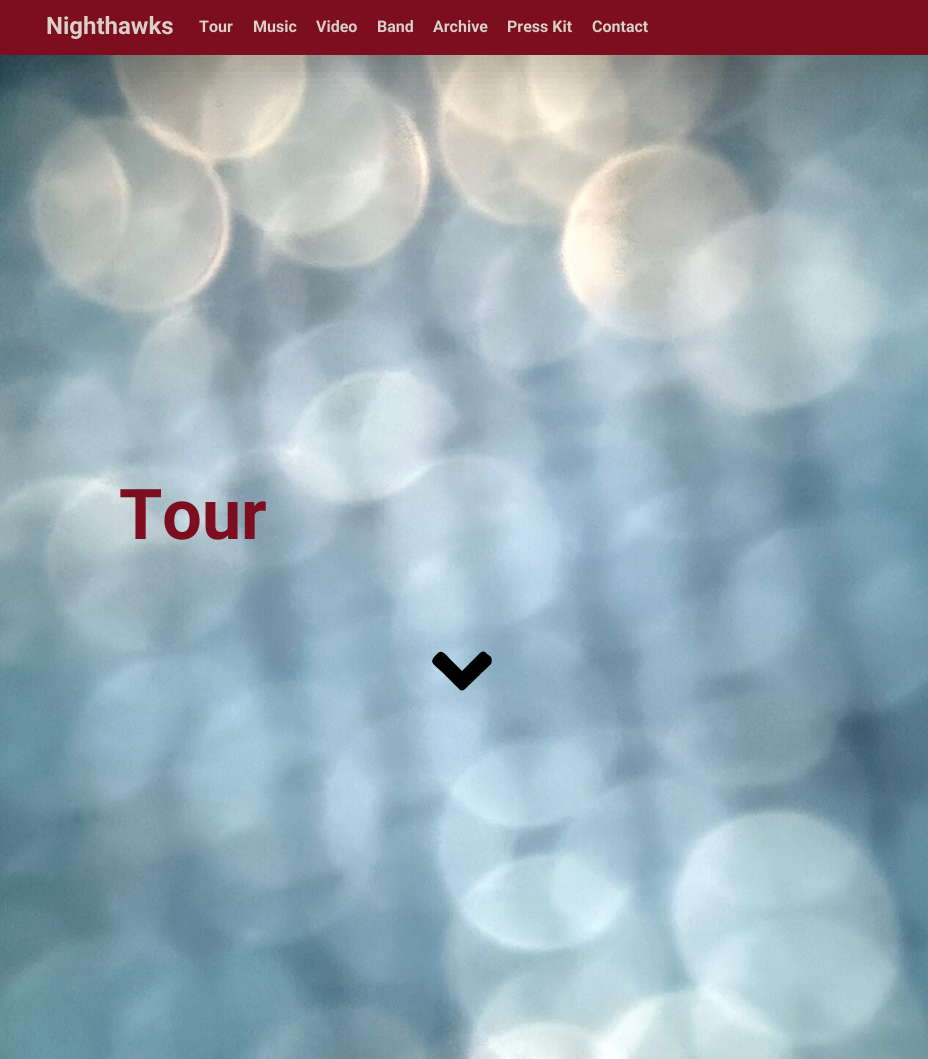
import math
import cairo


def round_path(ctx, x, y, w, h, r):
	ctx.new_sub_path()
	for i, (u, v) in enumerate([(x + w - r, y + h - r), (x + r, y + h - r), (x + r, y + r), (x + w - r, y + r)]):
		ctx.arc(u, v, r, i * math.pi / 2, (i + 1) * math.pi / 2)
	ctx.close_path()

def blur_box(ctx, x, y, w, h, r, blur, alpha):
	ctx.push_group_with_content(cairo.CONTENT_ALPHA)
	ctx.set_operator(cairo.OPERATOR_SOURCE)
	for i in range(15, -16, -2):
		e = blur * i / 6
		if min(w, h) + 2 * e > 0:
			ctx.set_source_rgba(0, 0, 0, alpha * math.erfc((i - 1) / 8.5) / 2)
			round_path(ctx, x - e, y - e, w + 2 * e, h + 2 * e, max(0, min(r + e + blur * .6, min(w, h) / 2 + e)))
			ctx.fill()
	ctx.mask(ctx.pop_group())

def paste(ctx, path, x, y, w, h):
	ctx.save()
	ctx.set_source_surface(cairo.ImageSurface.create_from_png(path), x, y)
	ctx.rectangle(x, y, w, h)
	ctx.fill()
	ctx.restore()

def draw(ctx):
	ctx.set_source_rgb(1, 1, 1)
	ctx.paint()
	paste(ctx, 'media/1.png', 0, 55, 928, 1004)
	ctx.set_source_rgb(0, 0, 0)
	blur_box(ctx, -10, 0, 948, 75, 0, 18, 0.15)
	ctx.set_source_rgb(0.486, 0.055, 0.125)
	ctx.rectangle(0, 0, 928, 55)
	ctx.fill()
	ctx.select_font_face('Roboto', cairo.FONT_SLANT_NORMAL, cairo.FONT_WEIGHT_BOLD)
	ctx.set_font_size(24)
	ctx.set_source_rgb(0.843, 0.82, 0.784)
	ctx.move_to(46, 34)
	ctx.show_text('Nighthawks')
	ctx.set_font_size(16)
	for x, y, s in [
		(199, 32, 'Tour'),
		(253, 32, 'Music'),
		(316, 32, 'Video'),
		(377, 32, 'Band'),
		(433, 32, 'Archive'),
		(507, 32, 'Press Kit'),
		(592, 32, 'Contact'),
	]:
		ctx.move_to(x, y)
		ctx.show_text(s)
	ctx.set_font_size(70)
	ctx.set_source_rgb(0.486, 0.055, 0.125)
	ctx.move_to(119, 539)
	ctx.show_text('Tour')
	ctx.set_source_rgb(0, 0, 0)
	ctx.new_path()
	ctx.move_to(459, 689)
	ctx.line_to(442, 672)
	ctx.curve_to(432, 663, 428, 662, 438, 653)
	ctx.curve_to(442, 649, 447, 656, 450, 659)
	ctx.line_to(462, 671)
	ctx.line_to(480, 653)
	ctx.curve_to(482, 651, 485, 651, 486, 653)
	ctx.line_to(491, 657)
	ctx.curve_to(492, 659, 492, 662, 491, 664)
	ctx.line_to(465, 689)
	ctx.curve_to(463, 691, 461, 691, 459, 689)
	ctx.close_path()
	ctx.fill()


surface = cairo.ImageSurface(cairo.FORMAT_RGB24, 928, 1059)
ctx = cairo.Context(surface)
options = cairo.FontOptions()
options.set_hint_metrics(cairo.HINT_METRICS_OFF)
options.set_hint_style(cairo.HINT_STYLE_NONE)
ctx.set_font_options(options)
ctx.set_miter_limit(4)
draw(ctx)
surface.write_to_png('image.png')
